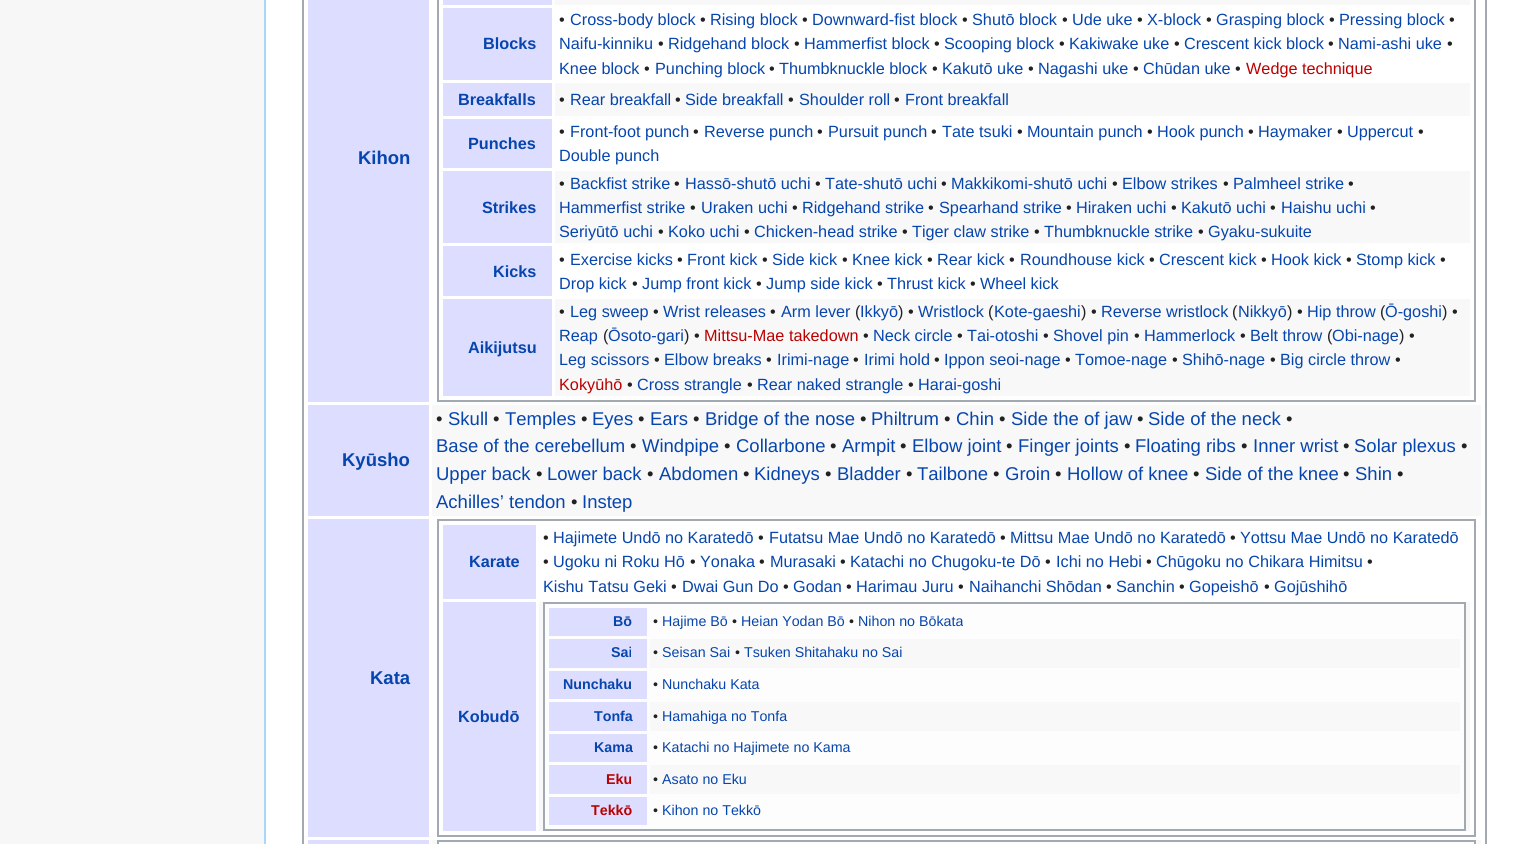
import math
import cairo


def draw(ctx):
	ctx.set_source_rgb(0.965, 0.965, 0.965)
	ctx.paint()
	ctx.set_source_rgb(1, 1, 1)
	ctx.rectangle(266, 0, 1256, 844)
	ctx.fill()
	ctx.set_source_rgb(0.655, 0.843, 0.976)
	ctx.rectangle(264, 0, 2, 844)
	ctx.fill()
	ctx.rectangle(303, -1, 1183, 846)
	ctx.set_source_rgb(0.635, 0.663, 0.694)
	ctx.stroke()
	ctx.set_source_rgb(0.867, 0.867, 1)
	ctx.rectangle(308, 0, 121, 402)
	ctx.fill()
	ctx.select_font_face('Liberation Sans', cairo.FONT_SLANT_NORMAL, cairo.FONT_WEIGHT_BOLD)
	ctx.set_font_size(18.5)
	ctx.set_source_rgb(0.024, 0.271, 0.678)
	ctx.move_to(358, 164)
	ctx.show_text('Kihon')
	ctx.rectangle(438, -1, 1037, 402)
	ctx.set_source_rgb(0.635, 0.663, 0.694)
	ctx.stroke()
	ctx.set_source_rgb(0.867, 0.867, 1)
	ctx.rectangle(443, 0, 109, 5)
	ctx.fill()
	ctx.set_source_rgb(0.969, 0.969, 0.969)
	ctx.rectangle(552, 0, 918, 5)
	ctx.fill()
	ctx.set_source_rgb(0.992, 0.992, 0.992)
	ctx.rectangle(552, 0, 3, 5)
	ctx.fill()
	ctx.set_source_rgb(0.867, 0.867, 1)
	ctx.rectangle(443, 8, 109, 72)
	ctx.fill()
	ctx.set_font_size(16.25)
	ctx.set_source_rgb(0.024, 0.271, 0.678)
	ctx.move_to(483, 49)
	ctx.show_text('Blocks')
	ctx.select_font_face('Liberation Sans')
	ctx.set_source_rgb(0.133, 0.133, 0.133)
	ctx.move_to(559, 25)
	ctx.show_text('•')
	ctx.set_source_rgb(0.024, 0.271, 0.678)
	ctx.move_to(570, 25)
	ctx.show_text('Cross-body block')
	ctx.set_source_rgb(0.133, 0.133, 0.133)
	ctx.move_to(700, 25)
	ctx.show_text('•')
	ctx.set_source_rgb(0.024, 0.271, 0.678)
	ctx.move_to(710, 25)
	ctx.show_text('Rising block')
	ctx.set_source_rgb(0.133, 0.133, 0.133)
	ctx.move_to(802, 25)
	ctx.show_text('•')
	ctx.set_source_rgb(0.024, 0.271, 0.678)
	ctx.move_to(812, 25)
	ctx.show_text('Downward-fist block')
	ctx.set_source_rgb(0.133, 0.133, 0.133)
	ctx.move_to(962, 25)
	ctx.show_text('•')
	ctx.set_source_rgb(0.024, 0.271, 0.678)
	ctx.move_to(972, 25)
	ctx.show_text('Shutō block')
	ctx.set_source_rgb(0.133, 0.133, 0.133)
	ctx.move_to(1062, 25)
	ctx.show_text('•')
	ctx.set_source_rgb(0.024, 0.271, 0.678)
	ctx.move_to(1072, 25)
	ctx.show_text('Ude uke')
	ctx.set_source_rgb(0.133, 0.133, 0.133)
	ctx.move_to(1137, 25)
	ctx.show_text('•')
	ctx.set_source_rgb(0.024, 0.271, 0.678)
	ctx.move_to(1147, 25)
	ctx.show_text('X-block')
	ctx.set_source_rgb(0.133, 0.133, 0.133)
	ctx.move_to(1206, 25)
	ctx.show_text('•')
	ctx.set_source_rgb(0.024, 0.271, 0.678)
	ctx.move_to(1216, 25)
	ctx.show_text('Grasping block')
	ctx.set_source_rgb(0.133, 0.133, 0.133)
	ctx.move_to(1329, 25)
	ctx.show_text('•')
	ctx.set_source_rgb(0.024, 0.271, 0.678)
	ctx.move_to(1339, 25)
	ctx.show_text('Pressing block')
	ctx.set_source_rgb(0.133, 0.133, 0.133)
	ctx.move_to(1449, 25)
	ctx.show_text('•')
	ctx.set_source_rgb(0.024, 0.271, 0.678)
	ctx.move_to(559, 49)
	ctx.show_text('Naifu-kinniku')
	ctx.set_source_rgb(0.133, 0.133, 0.133)
	ctx.move_to(658, 49)
	ctx.show_text('•')
	ctx.set_source_rgb(0.024, 0.271, 0.678)
	ctx.move_to(668, 49)
	ctx.show_text('Ridgehand block')
	ctx.set_source_rgb(0.133, 0.133, 0.133)
	ctx.move_to(794, 49)
	ctx.show_text('•')
	ctx.set_source_rgb(0.024, 0.271, 0.678)
	ctx.move_to(804, 49)
	ctx.show_text('Hammerfist block')
	ctx.set_source_rgb(0.133, 0.133, 0.133)
	ctx.move_to(934, 49)
	ctx.show_text('•')
	ctx.set_source_rgb(0.024, 0.271, 0.678)
	ctx.move_to(944, 49)
	ctx.show_text('Scooping block')
	ctx.set_source_rgb(0.133, 0.133, 0.133)
	ctx.move_to(1059, 49)
	ctx.show_text('•')
	ctx.set_source_rgb(0.024, 0.271, 0.678)
	ctx.move_to(1069, 49)
	ctx.show_text('Kakiwake uke')
	ctx.set_source_rgb(0.133, 0.133, 0.133)
	ctx.move_to(1174, 49)
	ctx.show_text('•')
	ctx.set_source_rgb(0.024, 0.271, 0.678)
	ctx.move_to(1184, 49)
	ctx.show_text('Crescent kick block')
	ctx.set_source_rgb(0.133, 0.133, 0.133)
	ctx.move_to(1328, 49)
	ctx.show_text('•')
	ctx.set_source_rgb(0.024, 0.271, 0.678)
	ctx.move_to(1338, 49)
	ctx.show_text('Nami-ashi uke')
	ctx.set_source_rgb(0.133, 0.133, 0.133)
	ctx.move_to(1447, 49)
	ctx.show_text('•')
	ctx.set_source_rgb(0.024, 0.271, 0.678)
	ctx.move_to(559, 74)
	ctx.show_text('Knee block')
	ctx.set_source_rgb(0.133, 0.133, 0.133)
	ctx.move_to(644, 74)
	ctx.show_text('•')
	ctx.set_source_rgb(0.024, 0.271, 0.678)
	ctx.move_to(655, 74)
	ctx.show_text('Punching block')
	ctx.set_source_rgb(0.133, 0.133, 0.133)
	ctx.move_to(769, 74)
	ctx.show_text('•')
	ctx.set_source_rgb(0.024, 0.271, 0.678)
	ctx.move_to(779, 74)
	ctx.show_text('Thumbknuckle block')
	ctx.set_source_rgb(0.133, 0.133, 0.133)
	ctx.move_to(932, 74)
	ctx.show_text('•')
	ctx.set_source_rgb(0.024, 0.271, 0.678)
	ctx.move_to(942, 74)
	ctx.show_text('Kakutō uke')
	ctx.set_source_rgb(0.133, 0.133, 0.133)
	ctx.move_to(1028, 74)
	ctx.show_text('•')
	ctx.set_source_rgb(0.024, 0.271, 0.678)
	ctx.move_to(1038, 74)
	ctx.show_text('Nagashi uke')
	ctx.set_source_rgb(0.133, 0.133, 0.133)
	ctx.move_to(1133, 74)
	ctx.show_text('•')
	ctx.set_source_rgb(0.024, 0.271, 0.678)
	ctx.move_to(1143, 74)
	ctx.show_text('Chūdan uke')
	ctx.set_source_rgb(0.133, 0.133, 0.133)
	ctx.move_to(1235, 74)
	ctx.show_text('•')
	ctx.set_source_rgb(0.729, 0, 0)
	ctx.move_to(1246, 74)
	ctx.show_text('Wedge technique')
	ctx.set_source_rgb(0.867, 0.867, 1)
	ctx.rectangle(443, 83, 109, 33)
	ctx.fill()
	ctx.select_font_face('Liberation Sans', cairo.FONT_SLANT_NORMAL, cairo.FONT_WEIGHT_BOLD)
	ctx.set_source_rgb(0.024, 0.271, 0.678)
	ctx.move_to(458, 105)
	ctx.show_text('Breakfalls')
	ctx.set_source_rgb(0.969, 0.969, 0.969)
	ctx.rectangle(555, 83, 915, 33)
	ctx.fill()
	ctx.select_font_face('Liberation Sans')
	ctx.set_source_rgb(0.133, 0.133, 0.133)
	ctx.move_to(559, 105)
	ctx.show_text('•')
	ctx.set_source_rgb(0.024, 0.271, 0.678)
	ctx.move_to(570, 105)
	ctx.show_text('Rear breakfall')
	ctx.set_source_rgb(0.133, 0.133, 0.133)
	ctx.move_to(675, 105)
	ctx.show_text('•')
	ctx.set_source_rgb(0.024, 0.271, 0.678)
	ctx.move_to(685, 105)
	ctx.show_text('Side breakfall')
	ctx.set_source_rgb(0.133, 0.133, 0.133)
	ctx.move_to(788, 105)
	ctx.show_text('•')
	ctx.set_source_rgb(0.024, 0.271, 0.678)
	ctx.move_to(799, 105)
	ctx.show_text('Shoulder roll')
	ctx.set_source_rgb(0.133, 0.133, 0.133)
	ctx.move_to(894, 105)
	ctx.show_text('•')
	ctx.set_source_rgb(0.024, 0.271, 0.678)
	ctx.move_to(905, 105)
	ctx.show_text('Front breakfall')
	ctx.set_source_rgb(0.867, 0.867, 1)
	ctx.rectangle(443, 119, 109, 49)
	ctx.fill()
	ctx.select_font_face('Liberation Sans', cairo.FONT_SLANT_NORMAL, cairo.FONT_WEIGHT_BOLD)
	ctx.set_source_rgb(0.024, 0.271, 0.678)
	ctx.move_to(468, 149)
	ctx.show_text('Punches')
	ctx.select_font_face('Liberation Sans')
	ctx.set_source_rgb(0.133, 0.133, 0.133)
	ctx.move_to(559, 137)
	ctx.show_text('•')
	ctx.set_source_rgb(0.024, 0.271, 0.678)
	ctx.move_to(570, 137)
	ctx.show_text('Front-foot punch')
	ctx.set_source_rgb(0.133, 0.133, 0.133)
	ctx.move_to(693, 137)
	ctx.show_text('•')
	ctx.set_source_rgb(0.024, 0.271, 0.678)
	ctx.move_to(704, 137)
	ctx.show_text('Reverse punch')
	ctx.set_source_rgb(0.133, 0.133, 0.133)
	ctx.move_to(817, 137)
	ctx.show_text('•')
	ctx.set_source_rgb(0.024, 0.271, 0.678)
	ctx.move_to(828, 137)
	ctx.show_text('Pursuit punch')
	ctx.set_source_rgb(0.133, 0.133, 0.133)
	ctx.move_to(931, 137)
	ctx.show_text('•')
	ctx.set_source_rgb(0.024, 0.271, 0.678)
	ctx.move_to(942, 137)
	ctx.show_text('Tate tsuki')
	ctx.set_source_rgb(0.133, 0.133, 0.133)
	ctx.move_to(1017, 137)
	ctx.show_text('•')
	ctx.set_source_rgb(0.024, 0.271, 0.678)
	ctx.move_to(1027, 137)
	ctx.show_text('Mountain punch')
	ctx.set_source_rgb(0.133, 0.133, 0.133)
	ctx.move_to(1147, 137)
	ctx.show_text('•')
	ctx.set_source_rgb(0.024, 0.271, 0.678)
	ctx.move_to(1157, 137)
	ctx.show_text('Hook punch')
	ctx.set_source_rgb(0.133, 0.133, 0.133)
	ctx.move_to(1248, 137)
	ctx.show_text('•')
	ctx.set_source_rgb(0.024, 0.271, 0.678)
	ctx.move_to(1258, 137)
	ctx.show_text('Haymaker')
	ctx.set_source_rgb(0.133, 0.133, 0.133)
	ctx.move_to(1337, 137)
	ctx.show_text('•')
	ctx.set_source_rgb(0.024, 0.271, 0.678)
	ctx.move_to(1347, 137)
	ctx.show_text('Uppercut')
	ctx.set_source_rgb(0.133, 0.133, 0.133)
	ctx.move_to(1418, 137)
	ctx.show_text('•')
	ctx.set_source_rgb(0.024, 0.271, 0.678)
	ctx.move_to(559, 161)
	ctx.show_text('Double punch')
	ctx.set_source_rgb(0.867, 0.867, 1)
	ctx.rectangle(443, 171, 109, 72)
	ctx.fill()
	ctx.select_font_face('Liberation Sans', cairo.FONT_SLANT_NORMAL, cairo.FONT_WEIGHT_BOLD)
	ctx.set_source_rgb(0.024, 0.271, 0.678)
	ctx.move_to(482, 213)
	ctx.show_text('Strikes')
	ctx.set_source_rgb(0.969, 0.969, 0.969)
	ctx.rectangle(555, 171, 915, 72)
	ctx.fill()
	ctx.select_font_face('Liberation Sans')
	ctx.set_source_rgb(0.133, 0.133, 0.133)
	ctx.move_to(559, 189)
	ctx.show_text('•')
	ctx.set_source_rgb(0.024, 0.271, 0.678)
	ctx.move_to(570, 189)
	ctx.show_text('Backfist strike')
	ctx.set_source_rgb(0.133, 0.133, 0.133)
	ctx.move_to(674, 189)
	ctx.show_text('•')
	ctx.set_source_rgb(0.024, 0.271, 0.678)
	ctx.move_to(685, 189)
	ctx.show_text('Hassō-shutō uchi')
	ctx.set_source_rgb(0.133, 0.133, 0.133)
	ctx.move_to(815, 189)
	ctx.show_text('•')
	ctx.set_source_rgb(0.024, 0.271, 0.678)
	ctx.move_to(825, 189)
	ctx.show_text('Tate-shutō uchi')
	ctx.set_source_rgb(0.133, 0.133, 0.133)
	ctx.move_to(941, 189)
	ctx.show_text('•')
	ctx.set_source_rgb(0.024, 0.271, 0.678)
	ctx.move_to(951, 189)
	ctx.show_text('Makkikomi-shutō uchi')
	ctx.set_source_rgb(0.133, 0.133, 0.133)
	ctx.move_to(1112, 189)
	ctx.show_text('•')
	ctx.set_source_rgb(0.024, 0.271, 0.678)
	ctx.move_to(1122, 189)
	ctx.show_text('Elbow strikes')
	ctx.set_source_rgb(0.133, 0.133, 0.133)
	ctx.move_to(1223, 189)
	ctx.show_text('•')
	ctx.set_source_rgb(0.024, 0.271, 0.678)
	ctx.move_to(1233, 189)
	ctx.show_text('Palmheel strike')
	ctx.set_source_rgb(0.133, 0.133, 0.133)
	ctx.move_to(1348, 189)
	ctx.show_text('•')
	ctx.set_source_rgb(0.024, 0.271, 0.678)
	ctx.move_to(559, 213)
	ctx.show_text('Hammerfist strike')
	ctx.set_source_rgb(0.133, 0.133, 0.133)
	ctx.move_to(690, 213)
	ctx.show_text('•')
	ctx.set_source_rgb(0.024, 0.271, 0.678)
	ctx.move_to(701, 213)
	ctx.show_text('Uraken uchi')
	ctx.set_source_rgb(0.133, 0.133, 0.133)
	ctx.move_to(792, 213)
	ctx.show_text('•')
	ctx.set_source_rgb(0.024, 0.271, 0.678)
	ctx.move_to(802, 213)
	ctx.show_text('Ridgehand strike')
	ctx.set_source_rgb(0.133, 0.133, 0.133)
	ctx.move_to(928, 213)
	ctx.show_text('•')
	ctx.set_source_rgb(0.024, 0.271, 0.678)
	ctx.move_to(939, 213)
	ctx.show_text('Spearhand strike')
	ctx.set_source_rgb(0.133, 0.133, 0.133)
	ctx.move_to(1066, 213)
	ctx.show_text('•')
	ctx.set_source_rgb(0.024, 0.271, 0.678)
	ctx.move_to(1076, 213)
	ctx.show_text('Hiraken uchi')
	ctx.set_source_rgb(0.133, 0.133, 0.133)
	ctx.move_to(1171, 213)
	ctx.show_text('•')
	ctx.set_source_rgb(0.024, 0.271, 0.678)
	ctx.move_to(1181, 213)
	ctx.show_text('Kakutō uchi')
	ctx.set_source_rgb(0.133, 0.133, 0.133)
	ctx.move_to(1270, 213)
	ctx.show_text('•')
	ctx.set_source_rgb(0.024, 0.271, 0.678)
	ctx.move_to(1281, 213)
	ctx.show_text('Haishu uchi')
	ctx.set_source_rgb(0.133, 0.133, 0.133)
	ctx.move_to(1370, 213)
	ctx.show_text('•')
	ctx.set_source_rgb(0.024, 0.271, 0.678)
	ctx.move_to(559, 237)
	ctx.show_text('Seriyūtō uchi')
	ctx.set_source_rgb(0.133, 0.133, 0.133)
	ctx.move_to(658, 237)
	ctx.show_text('•')
	ctx.set_source_rgb(0.024, 0.271, 0.678)
	ctx.move_to(668, 237)
	ctx.show_text('Koko uchi')
	ctx.set_source_rgb(0.133, 0.133, 0.133)
	ctx.move_to(744, 237)
	ctx.show_text('•')
	ctx.set_source_rgb(0.024, 0.271, 0.678)
	ctx.move_to(754, 237)
	ctx.show_text('Chicken-head strike')
	ctx.set_source_rgb(0.133, 0.133, 0.133)
	ctx.move_to(902, 237)
	ctx.show_text('•')
	ctx.set_source_rgb(0.024, 0.271, 0.678)
	ctx.move_to(912, 237)
	ctx.show_text('Tiger claw strike')
	ctx.set_source_rgb(0.133, 0.133, 0.133)
	ctx.move_to(1034, 237)
	ctx.show_text('•')
	ctx.set_source_rgb(0.024, 0.271, 0.678)
	ctx.move_to(1044, 237)
	ctx.show_text('Thumbknuckle strike')
	ctx.set_source_rgb(0.133, 0.133, 0.133)
	ctx.move_to(1198, 237)
	ctx.show_text('•')
	ctx.set_source_rgb(0.024, 0.271, 0.678)
	ctx.move_to(1208, 237)
	ctx.show_text('Gyaku-sukuite')
	ctx.set_source_rgb(0.867, 0.867, 1)
	ctx.rectangle(443, 246, 109, 50)
	ctx.fill()
	ctx.select_font_face('Liberation Sans', cairo.FONT_SLANT_NORMAL, cairo.FONT_WEIGHT_BOLD)
	ctx.set_source_rgb(0.024, 0.271, 0.678)
	ctx.move_to(493, 277)
	ctx.show_text('Kicks')
	ctx.select_font_face('Liberation Sans')
	ctx.set_source_rgb(0.133, 0.133, 0.133)
	ctx.move_to(559, 265)
	ctx.show_text('•')
	ctx.set_source_rgb(0.024, 0.271, 0.678)
	ctx.move_to(570, 265)
	ctx.show_text('Exercise kicks')
	ctx.set_source_rgb(0.133, 0.133, 0.133)
	ctx.move_to(677, 265)
	ctx.show_text('•')
	ctx.set_source_rgb(0.024, 0.271, 0.678)
	ctx.move_to(687, 265)
	ctx.show_text('Front kick')
	ctx.set_source_rgb(0.133, 0.133, 0.133)
	ctx.move_to(762, 265)
	ctx.show_text('•')
	ctx.set_source_rgb(0.024, 0.271, 0.678)
	ctx.move_to(772, 265)
	ctx.show_text('Side kick')
	ctx.set_source_rgb(0.133, 0.133, 0.133)
	ctx.move_to(842, 265)
	ctx.show_text('•')
	ctx.set_source_rgb(0.024, 0.271, 0.678)
	ctx.move_to(852, 265)
	ctx.show_text('Knee kick')
	ctx.set_source_rgb(0.133, 0.133, 0.133)
	ctx.move_to(927, 265)
	ctx.show_text('•')
	ctx.set_source_rgb(0.024, 0.271, 0.678)
	ctx.move_to(937, 265)
	ctx.show_text('Rear kick')
	ctx.set_source_rgb(0.133, 0.133, 0.133)
	ctx.move_to(1009, 265)
	ctx.show_text('•')
	ctx.set_source_rgb(0.024, 0.271, 0.678)
	ctx.move_to(1020, 265)
	ctx.show_text('Roundhouse kick')
	ctx.set_source_rgb(0.133, 0.133, 0.133)
	ctx.move_to(1149, 265)
	ctx.show_text('•')
	ctx.set_source_rgb(0.024, 0.271, 0.678)
	ctx.move_to(1159, 265)
	ctx.show_text('Crescent kick')
	ctx.set_source_rgb(0.133, 0.133, 0.133)
	ctx.move_to(1261, 265)
	ctx.show_text('•')
	ctx.set_source_rgb(0.024, 0.271, 0.678)
	ctx.move_to(1271, 265)
	ctx.show_text('Hook kick')
	ctx.set_source_rgb(0.133, 0.133, 0.133)
	ctx.move_to(1346, 265)
	ctx.show_text('•')
	ctx.set_source_rgb(0.024, 0.271, 0.678)
	ctx.move_to(1356, 265)
	ctx.show_text('Stomp kick')
	ctx.set_source_rgb(0.133, 0.133, 0.133)
	ctx.move_to(1440, 265)
	ctx.show_text('•')
	ctx.set_source_rgb(0.024, 0.271, 0.678)
	ctx.move_to(559, 289)
	ctx.show_text('Drop kick')
	ctx.set_source_rgb(0.133, 0.133, 0.133)
	ctx.move_to(632, 289)
	ctx.show_text('•')
	ctx.set_source_rgb(0.024, 0.271, 0.678)
	ctx.move_to(642, 289)
	ctx.show_text('Jump front kick')
	ctx.set_source_rgb(0.133, 0.133, 0.133)
	ctx.move_to(756, 289)
	ctx.show_text('•')
	ctx.set_source_rgb(0.024, 0.271, 0.678)
	ctx.move_to(766, 289)
	ctx.show_text('Jump side kick')
	ctx.set_source_rgb(0.133, 0.133, 0.133)
	ctx.move_to(877, 289)
	ctx.show_text('•')
	ctx.set_source_rgb(0.024, 0.271, 0.678)
	ctx.move_to(887, 289)
	ctx.show_text('Thrust kick')
	ctx.set_source_rgb(0.133, 0.133, 0.133)
	ctx.move_to(970, 289)
	ctx.show_text('•')
	ctx.set_source_rgb(0.024, 0.271, 0.678)
	ctx.move_to(980, 289)
	ctx.show_text('Wheel kick')
	ctx.set_source_rgb(0.867, 0.867, 1)
	ctx.rectangle(443, 299, 109, 97)
	ctx.fill()
	ctx.select_font_face('Liberation Sans', cairo.FONT_SLANT_NORMAL, cairo.FONT_WEIGHT_BOLD)
	ctx.set_source_rgb(0.024, 0.271, 0.678)
	ctx.move_to(468, 353)
	ctx.show_text('Aikijutsu')
	ctx.set_source_rgb(0.969, 0.969, 0.969)
	ctx.rectangle(555, 299, 915, 97)
	ctx.fill()
	ctx.select_font_face('Liberation Sans')
	ctx.set_source_rgb(0.133, 0.133, 0.133)
	ctx.move_to(559, 317)
	ctx.show_text('•')
	ctx.set_source_rgb(0.024, 0.271, 0.678)
	ctx.move_to(570, 317)
	ctx.show_text('Leg sweep')
	ctx.set_source_rgb(0.133, 0.133, 0.133)
	ctx.move_to(653, 317)
	ctx.show_text('•')
	ctx.set_source_rgb(0.024, 0.271, 0.678)
	ctx.move_to(663, 317)
	ctx.show_text('Wrist releases')
	ctx.set_source_rgb(0.133, 0.133, 0.133)
	ctx.move_to(770, 317)
	ctx.show_text('•')
	ctx.set_source_rgb(0.024, 0.271, 0.678)
	ctx.move_to(781, 317)
	ctx.show_text('Arm lever')
	ctx.set_source_rgb(0.133, 0.133, 0.133)
	ctx.move_to(855, 317)
	ctx.show_text('(')
	ctx.set_source_rgb(0.024, 0.271, 0.678)
	ctx.move_to(860, 317)
	ctx.show_text('Ikkyō')
	ctx.set_source_rgb(0.133, 0.133, 0.133)
	ctx.move_to(898, 317)
	ctx.show_text(') •')
	ctx.set_source_rgb(0.024, 0.271, 0.678)
	ctx.move_to(918, 317)
	ctx.show_text('Wristlock')
	ctx.set_source_rgb(0.133, 0.133, 0.133)
	ctx.move_to(988, 317)
	ctx.show_text('(')
	ctx.set_source_rgb(0.024, 0.271, 0.678)
	ctx.move_to(994, 317)
	ctx.show_text('Kote-gaeshi')
	ctx.set_source_rgb(0.133, 0.133, 0.133)
	ctx.move_to(1081, 317)
	ctx.show_text(') •')
	ctx.set_source_rgb(0.024, 0.271, 0.678)
	ctx.move_to(1101, 317)
	ctx.show_text('Reverse wristlock')
	ctx.set_source_rgb(0.133, 0.133, 0.133)
	ctx.move_to(1232, 317)
	ctx.show_text('(')
	ctx.set_source_rgb(0.024, 0.271, 0.678)
	ctx.move_to(1238, 317)
	ctx.show_text('Nikkyō')
	ctx.set_source_rgb(0.133, 0.133, 0.133)
	ctx.move_to(1287, 317)
	ctx.show_text(') •')
	ctx.set_source_rgb(0.024, 0.271, 0.678)
	ctx.move_to(1307, 317)
	ctx.show_text('Hip throw')
	ctx.set_source_rgb(0.133, 0.133, 0.133)
	ctx.move_to(1380, 317)
	ctx.show_text('(')
	ctx.set_source_rgb(0.024, 0.271, 0.678)
	ctx.move_to(1385, 317)
	ctx.show_text('Ō-goshi')
	ctx.set_source_rgb(0.133, 0.133, 0.133)
	ctx.move_to(1442, 317)
	ctx.show_text(') •')
	ctx.set_source_rgb(0.024, 0.271, 0.678)
	ctx.move_to(559, 341)
	ctx.show_text('Reap')
	ctx.set_source_rgb(0.133, 0.133, 0.133)
	ctx.move_to(603, 341)
	ctx.show_text('(')
	ctx.set_source_rgb(0.024, 0.271, 0.678)
	ctx.move_to(608, 341)
	ctx.show_text('Ōsoto-gari')
	ctx.set_source_rgb(0.133, 0.133, 0.133)
	ctx.move_to(684, 341)
	ctx.show_text(') •')
	ctx.set_source_rgb(0.729, 0, 0)
	ctx.move_to(704, 341)
	ctx.show_text('Mittsu-Mae takedown')
	ctx.set_source_rgb(0.133, 0.133, 0.133)
	ctx.move_to(863, 341)
	ctx.show_text('•')
	ctx.set_source_rgb(0.024, 0.271, 0.678)
	ctx.move_to(873, 341)
	ctx.show_text('Neck circle')
	ctx.set_source_rgb(0.133, 0.133, 0.133)
	ctx.move_to(957, 341)
	ctx.show_text('•')
	ctx.set_source_rgb(0.024, 0.271, 0.678)
	ctx.move_to(967, 341)
	ctx.show_text('Tai-otoshi')
	ctx.set_source_rgb(0.133, 0.133, 0.133)
	ctx.move_to(1043, 341)
	ctx.show_text('•')
	ctx.set_source_rgb(0.024, 0.271, 0.678)
	ctx.move_to(1053, 341)
	ctx.show_text('Shovel pin')
	ctx.set_source_rgb(0.133, 0.133, 0.133)
	ctx.move_to(1134, 341)
	ctx.show_text('•')
	ctx.set_source_rgb(0.024, 0.271, 0.678)
	ctx.move_to(1144, 341)
	ctx.show_text('Hammerlock')
	ctx.set_source_rgb(0.133, 0.133, 0.133)
	ctx.move_to(1240, 341)
	ctx.show_text('•')
	ctx.set_source_rgb(0.024, 0.271, 0.678)
	ctx.move_to(1250, 341)
	ctx.show_text('Belt throw')
	ctx.set_source_rgb(0.133, 0.133, 0.133)
	ctx.move_to(1327, 341)
	ctx.show_text('(')
	ctx.set_source_rgb(0.024, 0.271, 0.678)
	ctx.move_to(1332, 341)
	ctx.show_text('Obi-nage')
	ctx.set_source_rgb(0.133, 0.133, 0.133)
	ctx.move_to(1399, 341)
	ctx.show_text(') •')
	ctx.set_source_rgb(0.024, 0.271, 0.678)
	ctx.move_to(559, 365)
	ctx.show_text('Leg scissors')
	ctx.set_source_rgb(0.133, 0.133, 0.133)
	ctx.move_to(654, 365)
	ctx.show_text('•')
	ctx.set_source_rgb(0.024, 0.271, 0.678)
	ctx.move_to(664, 365)
	ctx.show_text('Elbow breaks')
	ctx.set_source_rgb(0.133, 0.133, 0.133)
	ctx.move_to(766, 365)
	ctx.show_text('•')
	ctx.set_source_rgb(0.024, 0.271, 0.678)
	ctx.move_to(777, 365)
	ctx.show_text('Irimi-nage')
	ctx.set_source_rgb(0.133, 0.133, 0.133)
	ctx.move_to(853, 365)
	ctx.show_text('•')
	ctx.set_source_rgb(0.024, 0.271, 0.678)
	ctx.move_to(864, 365)
	ctx.show_text('Irimi hold')
	ctx.set_source_rgb(0.133, 0.133, 0.133)
	ctx.move_to(934, 365)
	ctx.show_text('•')
	ctx.set_source_rgb(0.024, 0.271, 0.678)
	ctx.move_to(944, 365)
	ctx.show_text('Ippon seoi-nage')
	ctx.set_source_rgb(0.133, 0.133, 0.133)
	ctx.move_to(1065, 365)
	ctx.show_text('•')
	ctx.set_source_rgb(0.024, 0.271, 0.678)
	ctx.move_to(1075, 365)
	ctx.show_text('Tomoe-nage')
	ctx.set_source_rgb(0.133, 0.133, 0.133)
	ctx.move_to(1172, 365)
	ctx.show_text('•')
	ctx.set_source_rgb(0.024, 0.271, 0.678)
	ctx.move_to(1182, 365)
	ctx.show_text('Shihō-nage')
	ctx.set_source_rgb(0.133, 0.133, 0.133)
	ctx.move_to(1270, 365)
	ctx.show_text('•')
	ctx.set_source_rgb(0.024, 0.271, 0.678)
	ctx.move_to(1280, 365)
	ctx.show_text('Big circle throw')
	ctx.set_source_rgb(0.133, 0.133, 0.133)
	ctx.move_to(1395, 365)
	ctx.show_text('•')
	ctx.set_source_rgb(0.729, 0, 0)
	ctx.move_to(559, 390)
	ctx.show_text('Kokyūhō')
	ctx.set_source_rgb(0.133, 0.133, 0.133)
	ctx.move_to(627, 390)
	ctx.show_text('•')
	ctx.set_source_rgb(0.024, 0.271, 0.678)
	ctx.move_to(637, 390)
	ctx.show_text('Cross strangle')
	ctx.set_source_rgb(0.133, 0.133, 0.133)
	ctx.move_to(747, 390)
	ctx.show_text('•')
	ctx.set_source_rgb(0.024, 0.271, 0.678)
	ctx.move_to(757, 390)
	ctx.show_text('Rear naked strangle')
	ctx.set_source_rgb(0.133, 0.133, 0.133)
	ctx.move_to(908, 390)
	ctx.show_text('•')
	ctx.set_source_rgb(0.024, 0.271, 0.678)
	ctx.move_to(918, 390)
	ctx.show_text('Harai-goshi')
	ctx.set_source_rgb(0.867, 0.867, 1)
	ctx.rectangle(308, 405, 121, 111)
	ctx.fill()
	ctx.select_font_face('Liberation Sans', cairo.FONT_SLANT_NORMAL, cairo.FONT_WEIGHT_BOLD)
	ctx.set_font_size(18.5)
	ctx.set_source_rgb(0.024, 0.271, 0.678)
	ctx.move_to(342, 466)
	ctx.show_text('Kyūsho')
	ctx.set_source_rgb(0.969, 0.969, 0.969)
	ctx.rectangle(432, 405, 1049, 111)
	ctx.fill()
	ctx.select_font_face('Liberation Sans')
	ctx.set_source_rgb(0.133, 0.133, 0.133)
	ctx.move_to(436, 425)
	ctx.show_text('•')
	ctx.set_source_rgb(0.024, 0.271, 0.678)
	ctx.move_to(448, 425)
	ctx.show_text('Skull')
	ctx.set_source_rgb(0.133, 0.133, 0.133)
	ctx.move_to(493, 425)
	ctx.show_text('•')
	ctx.set_source_rgb(0.024, 0.271, 0.678)
	ctx.move_to(505, 425)
	ctx.show_text('Temples')
	ctx.set_source_rgb(0.133, 0.133, 0.133)
	ctx.move_to(581, 425)
	ctx.show_text('•')
	ctx.set_source_rgb(0.024, 0.271, 0.678)
	ctx.move_to(592, 425)
	ctx.show_text('Eyes')
	ctx.set_source_rgb(0.133, 0.133, 0.133)
	ctx.move_to(638, 425)
	ctx.show_text('•')
	ctx.set_source_rgb(0.024, 0.271, 0.678)
	ctx.move_to(650, 425)
	ctx.show_text('Ears')
	ctx.set_source_rgb(0.133, 0.133, 0.133)
	ctx.move_to(693, 425)
	ctx.show_text('•')
	ctx.set_source_rgb(0.024, 0.271, 0.678)
	ctx.move_to(705, 425)
	ctx.show_text('Bridge of the nose')
	ctx.set_source_rgb(0.133, 0.133, 0.133)
	ctx.move_to(860, 425)
	ctx.show_text('•')
	ctx.set_source_rgb(0.024, 0.271, 0.678)
	ctx.move_to(871, 425)
	ctx.show_text('Philtrum')
	ctx.set_source_rgb(0.133, 0.133, 0.133)
	ctx.move_to(944, 425)
	ctx.show_text('•')
	ctx.set_source_rgb(0.024, 0.271, 0.678)
	ctx.move_to(956, 425)
	ctx.show_text('Chin')
	ctx.set_source_rgb(0.133, 0.133, 0.133)
	ctx.move_to(999, 425)
	ctx.show_text('•')
	ctx.set_source_rgb(0.024, 0.271, 0.678)
	ctx.move_to(1011, 425)
	ctx.show_text('Side the of jaw')
	ctx.set_source_rgb(0.133, 0.133, 0.133)
	ctx.move_to(1137, 425)
	ctx.show_text('•')
	ctx.set_source_rgb(0.024, 0.271, 0.678)
	ctx.move_to(1148, 425)
	ctx.show_text('Side of the neck')
	ctx.set_source_rgb(0.133, 0.133, 0.133)
	ctx.move_to(1286, 425)
	ctx.show_text('•')
	ctx.set_source_rgb(0.024, 0.271, 0.678)
	ctx.move_to(436, 452)
	ctx.show_text('Base of the cerebellum')
	ctx.set_source_rgb(0.133, 0.133, 0.133)
	ctx.move_to(630, 452)
	ctx.show_text('•')
	ctx.set_source_rgb(0.024, 0.271, 0.678)
	ctx.move_to(642, 452)
	ctx.show_text('Windpipe')
	ctx.set_source_rgb(0.133, 0.133, 0.133)
	ctx.move_to(724, 452)
	ctx.show_text('•')
	ctx.set_source_rgb(0.024, 0.271, 0.678)
	ctx.move_to(736, 452)
	ctx.show_text('Collarbone')
	ctx.set_source_rgb(0.133, 0.133, 0.133)
	ctx.move_to(830, 452)
	ctx.show_text('•')
	ctx.set_source_rgb(0.024, 0.271, 0.678)
	ctx.move_to(842, 452)
	ctx.show_text('Armpit')
	ctx.set_source_rgb(0.133, 0.133, 0.133)
	ctx.move_to(900, 452)
	ctx.show_text('•')
	ctx.set_source_rgb(0.024, 0.271, 0.678)
	ctx.move_to(912, 452)
	ctx.show_text('Elbow joint')
	ctx.set_source_rgb(0.133, 0.133, 0.133)
	ctx.move_to(1006, 452)
	ctx.show_text('•')
	ctx.set_source_rgb(0.024, 0.271, 0.678)
	ctx.move_to(1018, 452)
	ctx.show_text('Finger joints')
	ctx.set_source_rgb(0.133, 0.133, 0.133)
	ctx.move_to(1124, 452)
	ctx.show_text('•')
	ctx.set_source_rgb(0.024, 0.271, 0.678)
	ctx.move_to(1135, 452)
	ctx.show_text('Floating ribs')
	ctx.set_source_rgb(0.133, 0.133, 0.133)
	ctx.move_to(1241, 452)
	ctx.show_text('•')
	ctx.set_source_rgb(0.024, 0.271, 0.678)
	ctx.move_to(1253, 452)
	ctx.show_text('Inner wrist')
	ctx.set_source_rgb(0.133, 0.133, 0.133)
	ctx.move_to(1343, 452)
	ctx.show_text('•')
	ctx.set_source_rgb(0.024, 0.271, 0.678)
	ctx.move_to(1354, 452)
	ctx.show_text('Solar plexus')
	ctx.set_source_rgb(0.133, 0.133, 0.133)
	ctx.move_to(1461, 452)
	ctx.show_text('•')
	ctx.set_source_rgb(0.024, 0.271, 0.678)
	ctx.move_to(436, 480)
	ctx.show_text('Upper back')
	ctx.set_source_rgb(0.133, 0.133, 0.133)
	ctx.move_to(536, 480)
	ctx.show_text('•')
	ctx.set_source_rgb(0.024, 0.271, 0.678)
	ctx.move_to(547, 480)
	ctx.show_text('Lower back')
	ctx.set_source_rgb(0.133, 0.133, 0.133)
	ctx.move_to(647, 480)
	ctx.show_text('•')
	ctx.set_source_rgb(0.024, 0.271, 0.678)
	ctx.move_to(659, 480)
	ctx.show_text('Abdomen')
	ctx.set_source_rgb(0.133, 0.133, 0.133)
	ctx.move_to(743, 480)
	ctx.show_text('•')
	ctx.set_source_rgb(0.024, 0.271, 0.678)
	ctx.move_to(754, 480)
	ctx.show_text('Kidneys')
	ctx.set_source_rgb(0.133, 0.133, 0.133)
	ctx.move_to(825, 480)
	ctx.show_text('•')
	ctx.set_source_rgb(0.024, 0.271, 0.678)
	ctx.move_to(837, 480)
	ctx.show_text('Bladder')
	ctx.set_source_rgb(0.133, 0.133, 0.133)
	ctx.move_to(906, 480)
	ctx.show_text('•')
	ctx.set_source_rgb(0.024, 0.271, 0.678)
	ctx.move_to(917, 480)
	ctx.show_text('Tailbone')
	ctx.set_source_rgb(0.133, 0.133, 0.133)
	ctx.move_to(993, 480)
	ctx.show_text('•')
	ctx.set_source_rgb(0.024, 0.271, 0.678)
	ctx.move_to(1005, 480)
	ctx.show_text('Groin')
	ctx.set_source_rgb(0.133, 0.133, 0.133)
	ctx.move_to(1055, 480)
	ctx.show_text('•')
	ctx.set_source_rgb(0.024, 0.271, 0.678)
	ctx.move_to(1067, 480)
	ctx.show_text('Hollow of knee')
	ctx.set_source_rgb(0.133, 0.133, 0.133)
	ctx.move_to(1193, 480)
	ctx.show_text('•')
	ctx.set_source_rgb(0.024, 0.271, 0.678)
	ctx.move_to(1205, 480)
	ctx.show_text('Side of the knee')
	ctx.set_source_rgb(0.133, 0.133, 0.133)
	ctx.move_to(1343, 480)
	ctx.show_text('•')
	ctx.set_source_rgb(0.024, 0.271, 0.678)
	ctx.move_to(1355, 480)
	ctx.show_text('Shin')
	ctx.set_source_rgb(0.133, 0.133, 0.133)
	ctx.move_to(1397, 480)
	ctx.show_text('•')
	ctx.set_source_rgb(0.024, 0.271, 0.678)
	ctx.move_to(436, 508)
	ctx.show_text('Achilles’ tendon')
	ctx.set_source_rgb(0.133, 0.133, 0.133)
	ctx.move_to(571, 508)
	ctx.show_text('•')
	ctx.set_source_rgb(0.024, 0.271, 0.678)
	ctx.move_to(582, 508)
	ctx.show_text('Instep')
	ctx.set_source_rgb(0.867, 0.867, 1)
	ctx.rectangle(308, 519, 121, 318)
	ctx.fill()
	ctx.select_font_face('Liberation Sans', cairo.FONT_SLANT_NORMAL, cairo.FONT_WEIGHT_BOLD)
	ctx.set_source_rgb(0.024, 0.271, 0.678)
	ctx.move_to(370, 684)
	ctx.show_text('Kata')
	ctx.rectangle(438, 520, 1037, 316)
	ctx.set_source_rgb(0.635, 0.663, 0.694)
	ctx.stroke()
	ctx.set_source_rgb(0.867, 0.867, 1)
	ctx.rectangle(443, 525, 93, 74)
	ctx.fill()
	ctx.set_font_size(16.25)
	ctx.set_source_rgb(0.024, 0.271, 0.678)
	ctx.move_to(469, 567)
	ctx.show_text('Karate')
	ctx.select_font_face('Liberation Sans')
	ctx.set_source_rgb(0.133, 0.133, 0.133)
	ctx.move_to(543, 543)
	ctx.show_text('•')
	ctx.set_source_rgb(0.024, 0.271, 0.678)
	ctx.move_to(553, 543)
	ctx.show_text('Hajimete Undō no Karatedō')
	ctx.set_source_rgb(0.133, 0.133, 0.133)
	ctx.move_to(758, 543)
	ctx.show_text('•')
	ctx.set_source_rgb(0.024, 0.271, 0.678)
	ctx.move_to(769, 543)
	ctx.show_text('Futatsu Mae Undō no Karatedō')
	ctx.set_source_rgb(0.133, 0.133, 0.133)
	ctx.move_to(1000, 543)
	ctx.show_text('•')
	ctx.set_source_rgb(0.024, 0.271, 0.678)
	ctx.move_to(1010, 543)
	ctx.show_text('Mittsu Mae Undō no Karatedō')
	ctx.set_source_rgb(0.133, 0.133, 0.133)
	ctx.move_to(1230, 543)
	ctx.show_text('•')
	ctx.set_source_rgb(0.024, 0.271, 0.678)
	ctx.move_to(1240, 543)
	ctx.show_text('Yottsu Mae Undō no Karatedō')
	ctx.set_source_rgb(0.133, 0.133, 0.133)
	ctx.move_to(543, 567)
	ctx.show_text('•')
	ctx.set_source_rgb(0.024, 0.271, 0.678)
	ctx.move_to(553, 567)
	ctx.show_text('Ugoku ni Roku Hō')
	ctx.set_source_rgb(0.133, 0.133, 0.133)
	ctx.move_to(690, 567)
	ctx.show_text('•')
	ctx.set_source_rgb(0.024, 0.271, 0.678)
	ctx.move_to(700, 567)
	ctx.show_text('Yonaka')
	ctx.set_source_rgb(0.133, 0.133, 0.133)
	ctx.move_to(759, 567)
	ctx.show_text('•')
	ctx.set_source_rgb(0.024, 0.271, 0.678)
	ctx.move_to(770, 567)
	ctx.show_text('Murasaki')
	ctx.set_source_rgb(0.133, 0.133, 0.133)
	ctx.move_to(840, 567)
	ctx.show_text('•')
	ctx.set_source_rgb(0.024, 0.271, 0.678)
	ctx.move_to(850, 567)
	ctx.show_text('Katachi no Chugoku-te Dō')
	ctx.set_source_rgb(0.133, 0.133, 0.133)
	ctx.move_to(1045, 567)
	ctx.show_text('•')
	ctx.set_source_rgb(0.024, 0.271, 0.678)
	ctx.move_to(1056, 567)
	ctx.show_text('Ichi no Hebi')
	ctx.set_source_rgb(0.133, 0.133, 0.133)
	ctx.move_to(1146, 567)
	ctx.show_text('•')
	ctx.set_source_rgb(0.024, 0.271, 0.678)
	ctx.move_to(1156, 567)
	ctx.show_text('Chūgoku no Chikara Himitsu')
	ctx.set_source_rgb(0.133, 0.133, 0.133)
	ctx.move_to(1367, 567)
	ctx.show_text('•')
	ctx.set_source_rgb(0.024, 0.271, 0.678)
	ctx.move_to(543, 592)
	ctx.show_text('Kishu Tatsu Geki')
	ctx.set_source_rgb(0.133, 0.133, 0.133)
	ctx.move_to(671, 592)
	ctx.show_text('•')
	ctx.set_source_rgb(0.024, 0.271, 0.678)
	ctx.move_to(682, 592)
	ctx.show_text('Dwai Gun Do')
	ctx.set_source_rgb(0.133, 0.133, 0.133)
	ctx.move_to(783, 592)
	ctx.show_text('•')
	ctx.set_source_rgb(0.024, 0.271, 0.678)
	ctx.move_to(793, 592)
	ctx.show_text('Godan')
	ctx.set_source_rgb(0.133, 0.133, 0.133)
	ctx.move_to(846, 592)
	ctx.show_text('•')
	ctx.set_source_rgb(0.024, 0.271, 0.678)
	ctx.move_to(856, 592)
	ctx.show_text('Harimau Juru')
	ctx.set_source_rgb(0.133, 0.133, 0.133)
	ctx.move_to(958, 592)
	ctx.show_text('•')
	ctx.set_source_rgb(0.024, 0.271, 0.678)
	ctx.move_to(969, 592)
	ctx.show_text('Naihanchi Shōdan')
	ctx.set_source_rgb(0.133, 0.133, 0.133)
	ctx.move_to(1106, 592)
	ctx.show_text('•')
	ctx.set_source_rgb(0.024, 0.271, 0.678)
	ctx.move_to(1116, 592)
	ctx.show_text('Sanchin')
	ctx.set_source_rgb(0.133, 0.133, 0.133)
	ctx.move_to(1179, 592)
	ctx.show_text('•')
	ctx.set_source_rgb(0.024, 0.271, 0.678)
	ctx.move_to(1189, 592)
	ctx.show_text('Gopeishō')
	ctx.set_source_rgb(0.133, 0.133, 0.133)
	ctx.move_to(1264, 592)
	ctx.show_text('•')
	ctx.set_source_rgb(0.024, 0.271, 0.678)
	ctx.move_to(1274, 592)
	ctx.show_text('Gojūshihō')
	ctx.set_source_rgb(0.867, 0.867, 1)
	ctx.rectangle(443, 602, 93, 229)
	ctx.fill()
	ctx.select_font_face('Liberation Sans', cairo.FONT_SLANT_NORMAL, cairo.FONT_WEIGHT_BOLD)
	ctx.set_source_rgb(0.024, 0.271, 0.678)
	ctx.move_to(458, 722)
	ctx.show_text('Kobudō')
	ctx.set_source_rgb(0.969, 0.969, 0.969)
	ctx.rectangle(539, 602, 931, 229)
	ctx.fill()
	ctx.set_source_rgb(0.992, 0.992, 0.992)
	ctx.rectangle(544, 603, 921, 227)
	ctx.fill_preserve()
	ctx.set_source_rgb(0.635, 0.663, 0.694)
	ctx.stroke()
	ctx.set_source_rgb(0.867, 0.867, 1)
	ctx.rectangle(549, 608, 98, 28)
	ctx.fill()
	ctx.set_font_size(14.25)
	ctx.set_source_rgb(0.024, 0.271, 0.678)
	ctx.move_to(613, 626)
	ctx.show_text('Bō')
	ctx.select_font_face('Liberation Sans')
	ctx.set_source_rgb(0.133, 0.133, 0.133)
	ctx.move_to(653, 626)
	ctx.show_text('•')
	ctx.set_source_rgb(0.024, 0.271, 0.678)
	ctx.move_to(662, 626)
	ctx.show_text('Hajime Bō')
	ctx.set_source_rgb(0.133, 0.133, 0.133)
	ctx.move_to(732, 626)
	ctx.show_text('•')
	ctx.set_source_rgb(0.024, 0.271, 0.678)
	ctx.move_to(741, 626)
	ctx.show_text('Heian Yodan Bō')
	ctx.set_source_rgb(0.133, 0.133, 0.133)
	ctx.move_to(849, 626)
	ctx.show_text('•')
	ctx.set_source_rgb(0.024, 0.271, 0.678)
	ctx.move_to(858, 626)
	ctx.show_text('Nihon no Bōkata')
	ctx.set_source_rgb(0.867, 0.867, 1)
	ctx.rectangle(549, 639, 98, 29)
	ctx.fill()
	ctx.select_font_face('Liberation Sans', cairo.FONT_SLANT_NORMAL, cairo.FONT_WEIGHT_BOLD)
	ctx.set_source_rgb(0.024, 0.271, 0.678)
	ctx.move_to(611, 657)
	ctx.show_text('Sai')
	ctx.set_source_rgb(0.969, 0.969, 0.969)
	ctx.rectangle(650, 639, 810, 29)
	ctx.fill()
	ctx.select_font_face('Liberation Sans')
	ctx.set_source_rgb(0.133, 0.133, 0.133)
	ctx.move_to(653, 657)
	ctx.show_text('•')
	ctx.set_source_rgb(0.024, 0.271, 0.678)
	ctx.move_to(662, 657)
	ctx.show_text('Seisan Sai')
	ctx.set_source_rgb(0.133, 0.133, 0.133)
	ctx.move_to(735, 657)
	ctx.show_text('•')
	ctx.set_source_rgb(0.024, 0.271, 0.678)
	ctx.move_to(744, 657)
	ctx.show_text('Tsuken Shitahaku no Sai')
	ctx.set_source_rgb(0.867, 0.867, 1)
	ctx.rectangle(549, 671, 98, 28)
	ctx.fill()
	ctx.select_font_face('Liberation Sans', cairo.FONT_SLANT_NORMAL, cairo.FONT_WEIGHT_BOLD)
	ctx.set_source_rgb(0.024, 0.271, 0.678)
	ctx.move_to(563, 689)
	ctx.show_text('Nunchaku')
	ctx.select_font_face('Liberation Sans')
	ctx.set_source_rgb(0.133, 0.133, 0.133)
	ctx.move_to(653, 689)
	ctx.show_text('•')
	ctx.set_source_rgb(0.024, 0.271, 0.678)
	ctx.move_to(662, 689)
	ctx.show_text('Nunchaku Kata')
	ctx.set_source_rgb(0.867, 0.867, 1)
	ctx.rectangle(549, 702, 98, 29)
	ctx.fill()
	ctx.select_font_face('Liberation Sans', cairo.FONT_SLANT_NORMAL, cairo.FONT_WEIGHT_BOLD)
	ctx.set_source_rgb(0.024, 0.271, 0.678)
	ctx.move_to(594, 721)
	ctx.show_text('Tonfa')
	ctx.set_source_rgb(0.969, 0.969, 0.969)
	ctx.rectangle(650, 702, 810, 29)
	ctx.fill()
	ctx.select_font_face('Liberation Sans')
	ctx.set_source_rgb(0.133, 0.133, 0.133)
	ctx.move_to(653, 721)
	ctx.show_text('•')
	ctx.set_source_rgb(0.024, 0.271, 0.678)
	ctx.move_to(662, 721)
	ctx.show_text('Hamahiga no Tonfa')
	ctx.set_source_rgb(0.867, 0.867, 1)
	ctx.rectangle(549, 734, 98, 28)
	ctx.fill()
	ctx.select_font_face('Liberation Sans', cairo.FONT_SLANT_NORMAL, cairo.FONT_WEIGHT_BOLD)
	ctx.set_source_rgb(0.024, 0.271, 0.678)
	ctx.move_to(594, 752)
	ctx.show_text('Kama')
	ctx.select_font_face('Liberation Sans')
	ctx.set_source_rgb(0.133, 0.133, 0.133)
	ctx.move_to(653, 752)
	ctx.show_text('•')
	ctx.set_source_rgb(0.024, 0.271, 0.678)
	ctx.move_to(662, 752)
	ctx.show_text('Katachi no Hajimete no Kama')
	ctx.set_source_rgb(0.867, 0.867, 1)
	ctx.rectangle(549, 765, 98, 29)
	ctx.fill()
	ctx.select_font_face('Liberation Sans', cairo.FONT_SLANT_NORMAL, cairo.FONT_WEIGHT_BOLD)
	ctx.set_source_rgb(0.729, 0, 0)
	ctx.move_to(606, 784)
	ctx.show_text('Eku')
	ctx.set_source_rgb(0.969, 0.969, 0.969)
	ctx.rectangle(650, 765, 810, 29)
	ctx.fill()
	ctx.select_font_face('Liberation Sans')
	ctx.set_source_rgb(0.133, 0.133, 0.133)
	ctx.move_to(653, 784)
	ctx.show_text('•')
	ctx.set_source_rgb(0.024, 0.271, 0.678)
	ctx.move_to(662, 784)
	ctx.show_text('Asato no Eku')
	ctx.set_source_rgb(0.867, 0.867, 1)
	ctx.rectangle(549, 797, 98, 28)
	ctx.fill()
	ctx.select_font_face('Liberation Sans', cairo.FONT_SLANT_NORMAL, cairo.FONT_WEIGHT_BOLD)
	ctx.set_source_rgb(0.729, 0, 0)
	ctx.move_to(591, 815)
	ctx.show_text('Tekkō')
	ctx.select_font_face('Liberation Sans')
	ctx.set_source_rgb(0.133, 0.133, 0.133)
	ctx.move_to(653, 815)
	ctx.show_text('•')
	ctx.set_source_rgb(0.024, 0.271, 0.678)
	ctx.move_to(662, 815)
	ctx.show_text('Kihon no Tekkō')
	ctx.set_source_rgb(0.867, 0.867, 1)
	ctx.rectangle(308, 840, 121, 4)
	ctx.fill()
	ctx.set_source_rgb(0.969, 0.969, 0.969)
	ctx.rectangle(429, 840, 1052, 4)
	ctx.fill()
	ctx.set_source_rgb(0.992, 0.992, 0.992)
	ctx.rectangle(429, 840, 3, 4)
	ctx.fill()
	ctx.rectangle(438, 841, 1037, 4)
	ctx.fill_preserve()
	ctx.set_source_rgb(0.635, 0.663, 0.694)
	ctx.stroke()


surface = cairo.ImageSurface(cairo.FORMAT_RGB24, 1522, 844)
ctx = cairo.Context(surface)
options = cairo.FontOptions()
options.set_hint_metrics(cairo.HINT_METRICS_OFF)
options.set_hint_style(cairo.HINT_STYLE_NONE)
ctx.set_font_options(options)
ctx.set_miter_limit(4)
draw(ctx)
surface.write_to_png('image.png')
